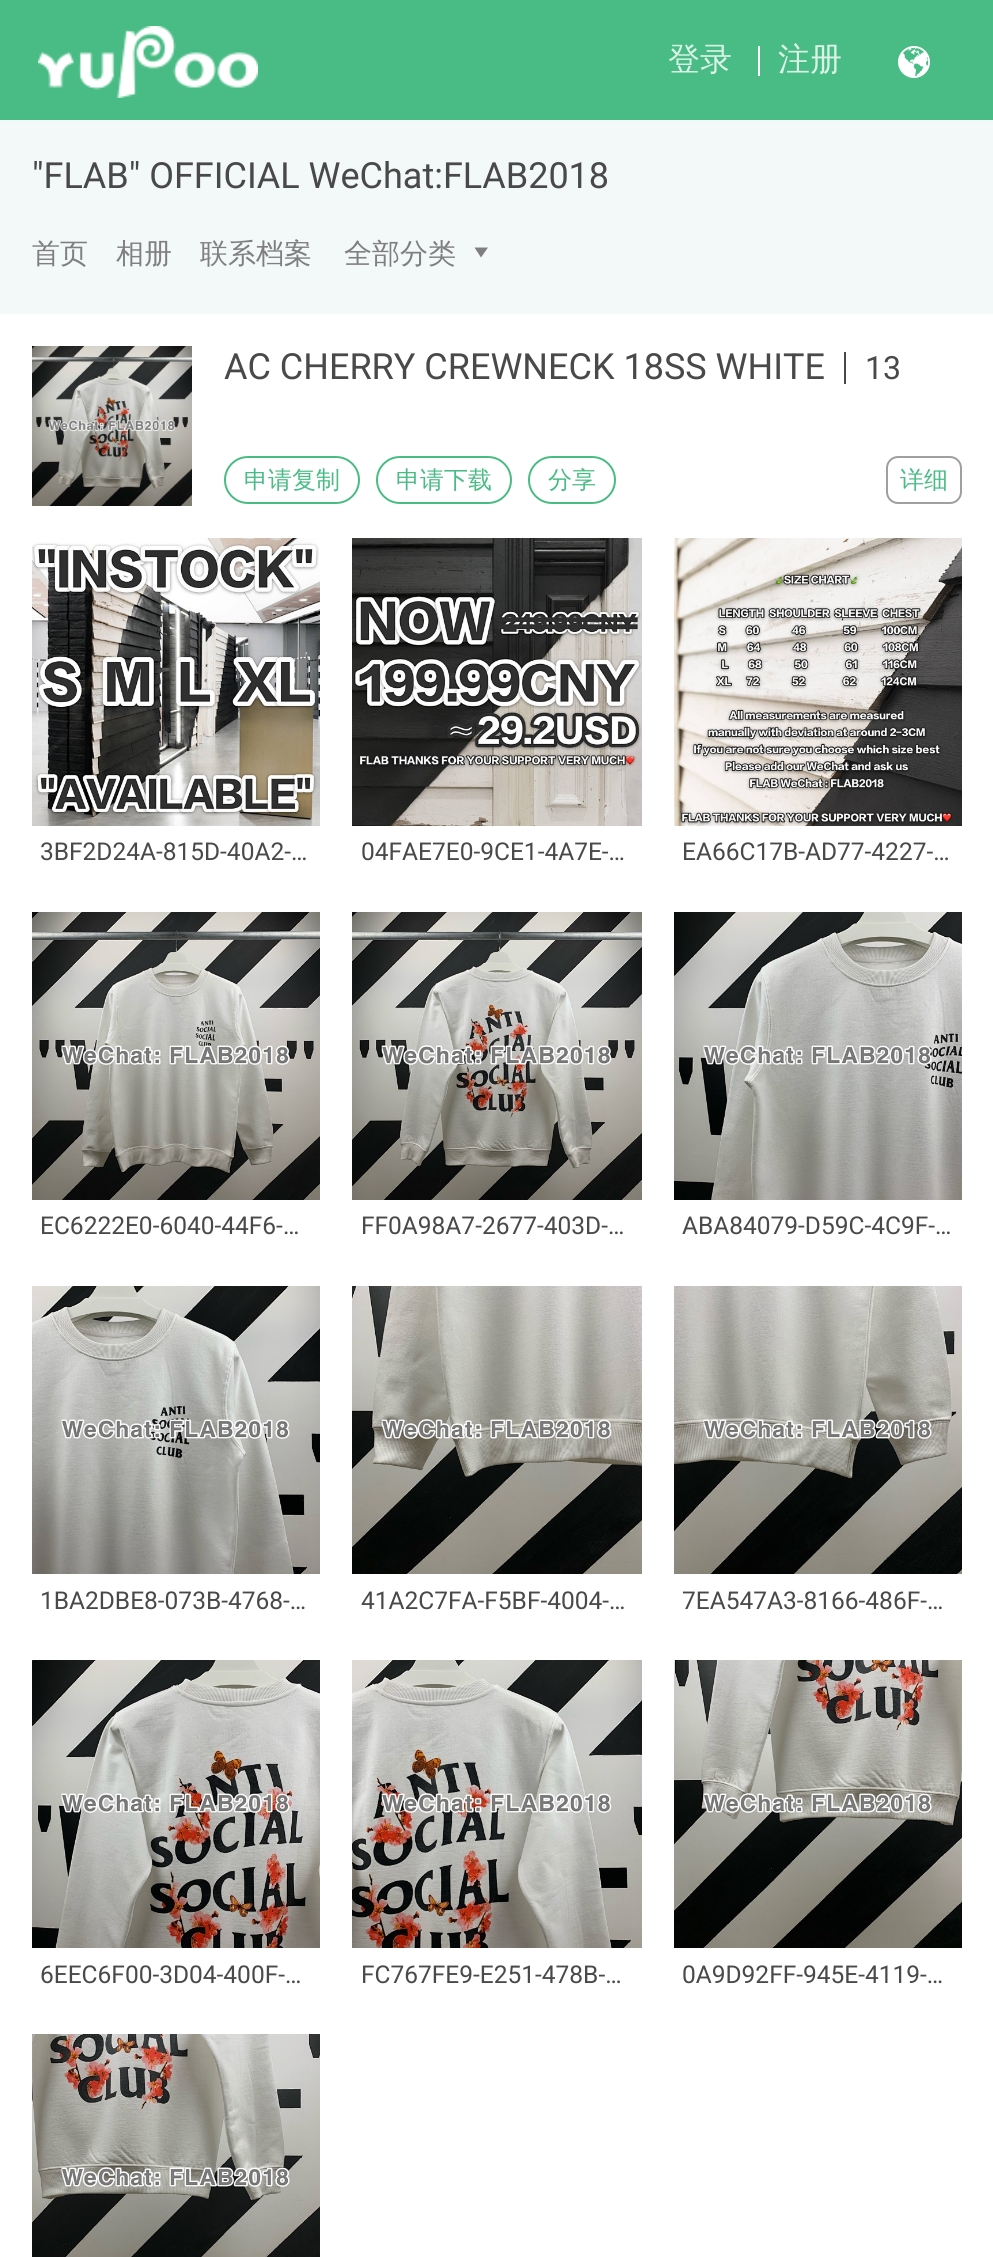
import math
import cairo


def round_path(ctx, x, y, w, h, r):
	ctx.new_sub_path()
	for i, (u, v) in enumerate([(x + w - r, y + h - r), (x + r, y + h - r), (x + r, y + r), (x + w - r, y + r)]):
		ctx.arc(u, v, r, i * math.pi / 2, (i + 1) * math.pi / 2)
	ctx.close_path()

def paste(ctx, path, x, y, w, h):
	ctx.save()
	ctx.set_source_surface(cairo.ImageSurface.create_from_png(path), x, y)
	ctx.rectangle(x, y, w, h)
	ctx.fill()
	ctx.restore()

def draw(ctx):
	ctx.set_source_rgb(1, 1, 1)
	ctx.paint()
	ctx.set_source_rgb(0.286, 0.737, 0.522)
	ctx.rectangle(0, 0, 993, 120)
	ctx.fill()
	paste(ctx, 'media/1.png', 38, 26, 220, 72)
	ctx.select_font_face('WenQuanYi Zen Hei Medium')
	ctx.set_font_size(32)
	ctx.set_source_rgb(0.859, 0.949, 0.906)
	ctx.move_to(668, 70)
	ctx.show_text('登录')
	ctx.set_source_rgb(1, 1, 1)
	ctx.rectangle(758, 46, 2, 30)
	ctx.fill()
	ctx.set_source_rgb(0.859, 0.949, 0.906)
	ctx.move_to(778, 70)
	ctx.show_text('注册')
	paste(ctx, 'media/2.png', 898, 46, 32, 32)
	ctx.set_source_rgb(0.953, 0.969, 0.969)
	ctx.rectangle(0, 120, 993, 194)
	ctx.fill()
	ctx.select_font_face('Roboto')
	ctx.set_font_size(36)
	ctx.set_source_rgb(0.286, 0.286, 0.286)
	ctx.move_to(32, 188)
	ctx.show_text('"FLAB" OFFICIAL WeChat:FLAB2018')
	ctx.select_font_face('WenQuanYi Zen Hei Medium')
	ctx.set_font_size(28)
	ctx.set_source_rgb(0.498, 0.498, 0.498)
	for x, y, s in [
		(32, 263, '首页'),
		(116, 263, '相册'),
		(200, 263, '联系档案'),
		(344, 263, '全部分类'),
	]:
		ctx.move_to(x, y)
		ctx.show_text(s)
	ctx.new_path()
	ctx.move_to(481, 257.5)
	ctx.line_to(474.5, 247.5)
	ctx.line_to(488, 247.5)
	ctx.close_path()
	ctx.fill()
	paste(ctx, 'media/3.png', 32, 346, 160, 160)
	ctx.select_font_face('Roboto')
	ctx.set_font_size(36)
	ctx.set_source_rgb(0.286, 0.286, 0.286)
	ctx.move_to(224, 379)
	ctx.show_text('AC CHERRY CREWNECK 18SS WHITE')
	ctx.rectangle(844, 352, 2, 32)
	ctx.fill()
	ctx.set_font_size(32)
	ctx.move_to(865, 379)
	ctx.show_text('13')
	round_path(ctx, 225, 457, 134, 46, 23)
	ctx.set_source_rgb(0.286, 0.737, 0.522)
	ctx.stroke()
	ctx.select_font_face('WenQuanYi Zen Hei Medium')
	ctx.set_font_size(24)
	ctx.move_to(244, 488)
	ctx.show_text('申请复制')
	round_path(ctx, 377, 457, 134, 46, 23)
	ctx.stroke()
	ctx.move_to(396, 488)
	ctx.show_text('申请下载')
	round_path(ctx, 529, 457, 86, 46, 23)
	ctx.stroke()
	ctx.move_to(548, 488)
	ctx.show_text('分享')
	round_path(ctx, 887, 457, 74, 46, 11)
	ctx.set_source_rgb(0.624, 0.624, 0.624)
	ctx.stroke()
	ctx.set_source_rgb(0.286, 0.737, 0.522)
	ctx.move_to(900, 488)
	ctx.show_text('详细')
	paste(ctx, 'media/4.png', 32, 538, 288, 288)
	ctx.select_font_face('Roboto')
	ctx.set_font_size(24.5)
	ctx.set_source_rgb(0.286, 0.286, 0.286)
	ctx.move_to(40, 860)
	ctx.show_text('3BF2D24A-815D-40A2-…')
	paste(ctx, 'media/5.png', 352, 538, 290, 288)
	ctx.move_to(361, 860)
	ctx.show_text('04FAE7E0-9CE1-4A7E-…')
	paste(ctx, 'media/6.png', 674, 538, 288, 288)
	ctx.move_to(682, 860)
	ctx.show_text('EA66C17B-AD77-4227-…')
	paste(ctx, 'media/7.png', 32, 912, 288, 288)
	ctx.move_to(40, 1234)
	ctx.show_text('EC6222E0-6040-44F6-…')
	paste(ctx, 'media/8.png', 352, 912, 290, 288)
	ctx.move_to(361, 1234)
	ctx.show_text('FF0A98A7-2677-403D-…')
	paste(ctx, 'media/9.png', 674, 912, 288, 288)
	ctx.move_to(682, 1234)
	ctx.show_text('ABA84079-D59C-4C9F-…')
	paste(ctx, 'media/10.png', 32, 1286, 288, 288)
	ctx.move_to(40, 1609)
	ctx.show_text('1BA2DBE8-073B-4768-…')
	paste(ctx, 'media/11.png', 352, 1286, 290, 288)
	ctx.move_to(361, 1609)
	ctx.show_text('41A2C7FA-F5BF-4004-…')
	paste(ctx, 'media/12.png', 674, 1286, 288, 288)
	ctx.move_to(682, 1609)
	ctx.show_text('7EA547A3-8166-486F-…')
	paste(ctx, 'media/13.png', 32, 1660, 288, 288)
	ctx.move_to(40, 1983)
	ctx.show_text('6EEC6F00-3D04-400F-…')
	paste(ctx, 'media/14.png', 352, 1660, 290, 288)
	ctx.move_to(361, 1983)
	ctx.show_text('FC767FE9-E251-478B-…')
	paste(ctx, 'media/15.png', 674, 1660, 288, 288)
	ctx.move_to(682, 1983)
	ctx.show_text('0A9D92FF-945E-4119-…')
	paste(ctx, 'media/16.png', 32, 2034, 288, 223)


surface = cairo.ImageSurface(cairo.FORMAT_RGB24, 993, 2257)
ctx = cairo.Context(surface)
options = cairo.FontOptions()
options.set_hint_metrics(cairo.HINT_METRICS_OFF)
options.set_hint_style(cairo.HINT_STYLE_NONE)
ctx.set_font_options(options)
ctx.set_miter_limit(4)
draw(ctx)
surface.write_to_png('image.png')
